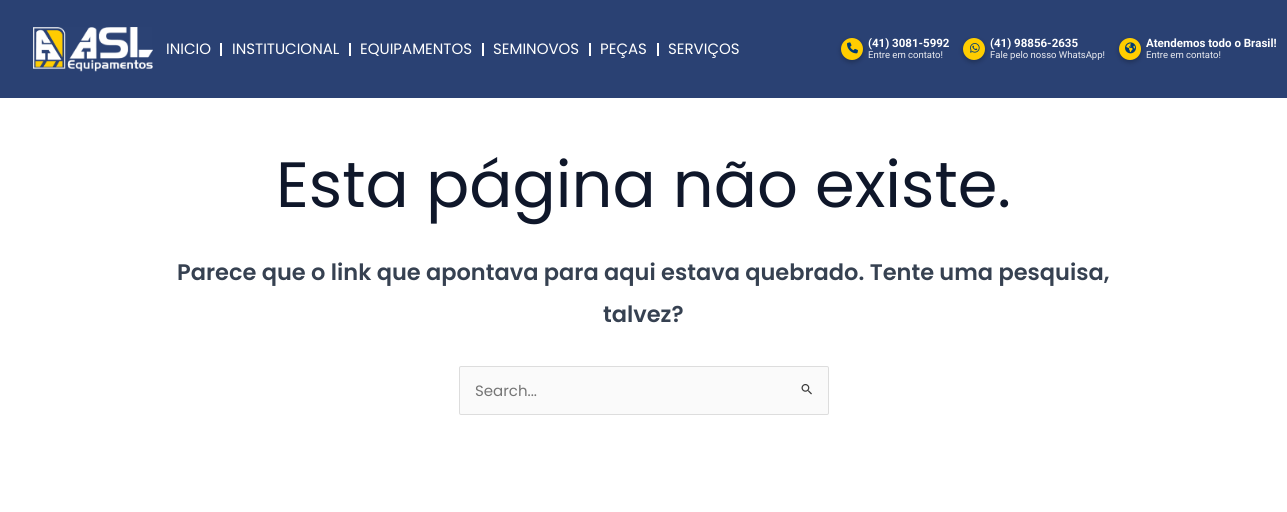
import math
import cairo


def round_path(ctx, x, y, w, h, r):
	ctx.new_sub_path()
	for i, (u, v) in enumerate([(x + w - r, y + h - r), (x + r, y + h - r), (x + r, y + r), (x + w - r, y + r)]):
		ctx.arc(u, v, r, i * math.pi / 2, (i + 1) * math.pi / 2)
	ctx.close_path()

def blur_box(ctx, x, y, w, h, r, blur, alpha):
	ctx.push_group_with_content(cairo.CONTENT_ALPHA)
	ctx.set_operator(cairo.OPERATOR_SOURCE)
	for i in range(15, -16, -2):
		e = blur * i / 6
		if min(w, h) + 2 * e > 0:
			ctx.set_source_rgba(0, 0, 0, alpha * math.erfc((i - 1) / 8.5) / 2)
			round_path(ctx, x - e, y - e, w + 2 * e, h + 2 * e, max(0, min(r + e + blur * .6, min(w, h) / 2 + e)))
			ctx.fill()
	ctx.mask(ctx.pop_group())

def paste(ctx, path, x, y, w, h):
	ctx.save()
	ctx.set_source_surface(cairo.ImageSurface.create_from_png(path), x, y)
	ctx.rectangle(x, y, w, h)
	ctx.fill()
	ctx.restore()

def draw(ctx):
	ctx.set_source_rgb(1, 1, 1)
	ctx.paint()
	ctx.set_source_rgb(0.165, 0.255, 0.451)
	ctx.rectangle(0, 0, 1287, 98)
	ctx.fill()
	paste(ctx, 'media/1.png', 33, 27, 120, 45)
	ctx.select_font_face('Poppins')
	ctx.set_font_size(15)
	ctx.set_source_rgb(1, 1, 1)
	ctx.move_to(166, 54)
	ctx.show_text('INICIO')
	ctx.rectangle(220, 43, 2, 13)
	ctx.fill()
	ctx.move_to(232, 54)
	ctx.show_text('INSTITUCIONAL')
	ctx.rectangle(349, 43, 2, 13)
	ctx.fill()
	ctx.move_to(360, 54)
	ctx.show_text('EQUIPAMENTOS')
	ctx.rectangle(482, 43, 2, 13)
	ctx.fill()
	ctx.move_to(493, 54)
	ctx.show_text('SEMINOVOS')
	ctx.rectangle(589, 43, 2, 13)
	ctx.fill()
	ctx.move_to(600, 54)
	ctx.show_text('PEÇAS')
	ctx.rectangle(657, 43, 2, 13)
	ctx.fill()
	ctx.move_to(668, 54)
	ctx.show_text('SERVIÇOS')
	ctx.set_source_rgb(0, 0, 0)
	blur_box(ctx, 841, 40, 22, 22, 11, 2.5, 0.25)
	ctx.set_source_rgb(1, 0.804, 0)
	ctx.arc(852, 49, 11, 0, 2 * math.pi)
	ctx.fill()
	paste(ctx, 'media/2.png', 847, 42, 11, 12)
	ctx.select_font_face('Roboto', cairo.FONT_SLANT_NORMAL, cairo.FONT_WEIGHT_BOLD)
	ctx.set_font_size(11.5)
	ctx.set_source_rgb(1, 1, 1)
	ctx.move_to(868, 47)
	ctx.show_text('(41) 3081-5992')
	ctx.select_font_face('Roboto')
	ctx.set_font_size(9.5)
	ctx.set_source_rgb(0.918, 0.925, 0.945)
	ctx.move_to(868, 58)
	ctx.show_text('Entre em contato!')
	ctx.set_source_rgb(0, 0, 0)
	blur_box(ctx, 963, 40, 22, 22, 11, 2.5, 0.25)
	ctx.set_source_rgb(1, 0.804, 0)
	ctx.arc(974, 49, 11, 0, 2 * math.pi)
	ctx.fill()
	paste(ctx, 'media/3.png', 970, 43, 10, 10)
	ctx.select_font_face('Roboto', cairo.FONT_SLANT_NORMAL, cairo.FONT_WEIGHT_BOLD)
	ctx.set_font_size(11.5)
	ctx.set_source_rgb(1, 1, 1)
	ctx.move_to(990, 47)
	ctx.show_text('(41) 98856-2635')
	ctx.select_font_face('Roboto')
	ctx.set_font_size(9.5)
	ctx.set_source_rgb(0.918, 0.925, 0.945)
	ctx.move_to(990, 58)
	ctx.show_text('Fale pelo nosso WhatsApp!')
	ctx.set_source_rgb(0, 0, 0)
	blur_box(ctx, 1119, 40, 22, 22, 11, 2.5, 0.25)
	ctx.set_source_rgb(1, 0.804, 0)
	ctx.arc(1130, 49, 11, 0, 2 * math.pi)
	ctx.fill()
	paste(ctx, 'media/4.png', 1125, 42, 11, 12)
	ctx.select_font_face('Roboto', cairo.FONT_SLANT_NORMAL, cairo.FONT_WEIGHT_BOLD)
	ctx.set_font_size(11.5)
	ctx.set_source_rgb(1, 1, 1)
	ctx.move_to(1146, 47)
	ctx.show_text('Atendemos todo o Brasil!')
	ctx.select_font_face('Roboto')
	ctx.set_font_size(9.5)
	ctx.set_source_rgb(0.918, 0.925, 0.945)
	ctx.move_to(1146, 58)
	ctx.show_text('Entre em contato!')
	ctx.select_font_face('Poppins')
	ctx.set_font_size(64)
	ctx.set_source_rgb(0.059, 0.09, 0.165)
	ctx.move_to(276, 207)
	ctx.show_text('Esta página não existe.')
	ctx.select_font_face('Poppins SemiBold')
	ctx.set_font_size(22.5)
	ctx.set_source_rgb(0.212, 0.255, 0.318)
	ctx.move_to(177, 280)
	ctx.show_text('Parece que o link que apontava para aqui estava quebrado. Tente uma pesquisa,')
	ctx.move_to(603, 322)
	ctx.show_text('talvez?')
	ctx.set_source_rgb(0.98, 0.98, 0.98)
	round_path(ctx, 459.5, 366.5, 369, 48, 1.5)
	ctx.fill_preserve()
	ctx.set_source_rgb(0.867, 0.867, 0.867)
	ctx.set_line_width(1)
	ctx.stroke()
	ctx.select_font_face('Poppins')
	ctx.set_font_size(15)
	ctx.set_source_rgb(0.459, 0.459, 0.459)
	ctx.move_to(475, 396)
	ctx.show_text('Search...')
	paste(ctx, 'media/5.png', 801, 384, 11, 11)


surface = cairo.ImageSurface(cairo.FORMAT_RGB24, 1287, 512)
ctx = cairo.Context(surface)
options = cairo.FontOptions()
options.set_hint_metrics(cairo.HINT_METRICS_OFF)
options.set_hint_style(cairo.HINT_STYLE_NONE)
ctx.set_font_options(options)
ctx.set_miter_limit(4)
draw(ctx)
surface.write_to_png('image.png')
